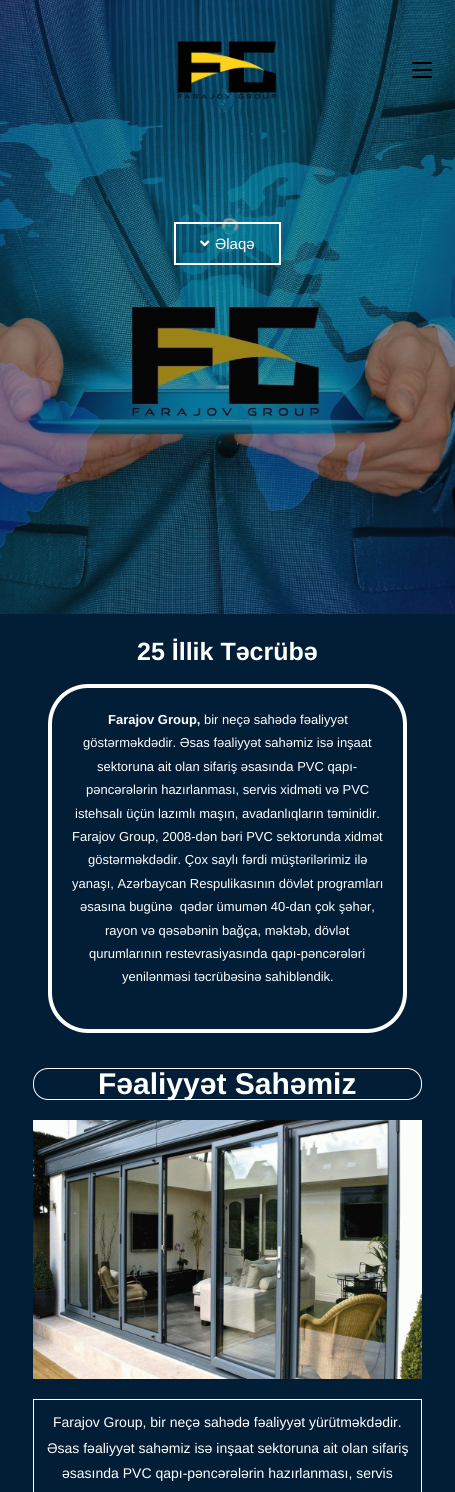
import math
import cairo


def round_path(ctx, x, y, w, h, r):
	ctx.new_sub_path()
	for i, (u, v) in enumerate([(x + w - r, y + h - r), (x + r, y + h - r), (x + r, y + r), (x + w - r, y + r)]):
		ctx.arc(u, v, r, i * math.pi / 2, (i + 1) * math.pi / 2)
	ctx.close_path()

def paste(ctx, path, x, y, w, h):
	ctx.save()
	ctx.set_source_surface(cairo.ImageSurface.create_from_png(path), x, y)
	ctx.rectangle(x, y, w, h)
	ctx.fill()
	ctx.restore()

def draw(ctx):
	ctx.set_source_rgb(0.004, 0.118, 0.212)
	ctx.paint()
	paste(ctx, 'media/2.png', 0, 0, 455, 614)
	paste(ctx, 'media/1.png', 177, 41, 100, 58)
	ctx.set_source_rgb(0, 0, 0)
	round_path(ctx, 412, 69, 20, 2, 1)
	ctx.fill()
	round_path(ctx, 412, 62, 20, 2, 1)
	ctx.fill()
	round_path(ctx, 412, 76, 20, 2, 1)
	ctx.fill()
	ctx.rectangle(175, 223, 105, 41)
	ctx.set_source_rgb(1, 1, 1)
	ctx.stroke()
	paste(ctx, 'media/3.png', 200, 240, 10, 7)
	ctx.select_font_face('Liberation Sans')
	ctx.set_font_size(15)
	ctx.move_to(215, 249)
	ctx.show_text('Əlaqə')
	ctx.select_font_face('Liberation Sans', cairo.FONT_SLANT_NORMAL, cairo.FONT_WEIGHT_BOLD)
	ctx.set_font_size(25)
	ctx.move_to(137, 660)
	ctx.show_text('25 İllik Təcrübə')
	round_path(ctx, 50, 686, 355, 345, 38)
	ctx.set_line_width(4)
	ctx.stroke()
	ctx.set_font_size(13)
	ctx.move_to(108, 724)
	ctx.show_text('Farajov Group,')
	ctx.select_font_face('Liberation Sans')
	for x, y, s in [
		(204, 724, 'bir neçə sahədə fəaliyyət'),
		(83, 747, 'göstərməkdədir. Əsas fəaliyyət sahəmiz isə inşaat'),
		(97, 771, 'sektoruna ait olan sifariş əsasında PVC qapı-'),
		(86, 794, 'pəncərələrin hazırlanması, servis xidməti və PVC'),
		(75, 818, 'istehsalı üçün lazımlı maşın, avadanlıqların təminidir.'),
		(72, 841, 'Farajov Group, 2008-dən bəri PVC sektorunda xidmət'),
		(88, 864, 'göstərməkdədir. Çox saylı fərdi müştərilərimiz ilə'),
		(72, 888, 'yanaşı, Azərbaycan Respulikasının dövlət programları'),
		(80, 911, 'əsasına bugünə  qədər ümumən 40-dan çok şəhər,'),
		(105, 935, 'rayon və qəsəbənin bağça, məktəb, dövlət'),
		(89, 958, 'qurumlarının restevrasiyasında qapı-pəncərələri'),
		(122, 981, 'yenilənməsi təcrübəsinə sahibləndik.'),
	]:
		ctx.move_to(x, y)
		ctx.show_text(s)
	round_path(ctx, 33.5, 1068.5, 388, 31, 14.5)
	ctx.set_line_width(1)
	ctx.stroke()
	ctx.select_font_face('Liberation Sans', cairo.FONT_SLANT_NORMAL, cairo.FONT_WEIGHT_BOLD)
	ctx.set_font_size(30)
	ctx.move_to(98, 1094)
	ctx.show_text('Fəaliyyət Sahəmiz')
	paste(ctx, 'media/4.png', 33, 1120, 389, 259)
	ctx.rectangle(33.5, 1399.5, 388, 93)
	ctx.stroke()
	ctx.select_font_face('Liberation Sans')
	ctx.set_font_size(14)
	for x, y, s in [
		(53, 1427, 'Farajov Group, bir neçə sahədə fəaliyyət yürütməkdədir.'),
		(47, 1453, 'Əsas fəaliyyət sahəmiz isə inşaat sektoruna ait olan sifariş'),
		(62, 1478, 'əsasında PVC qapı-pəncərələrin hazırlanması, servis'),
	]:
		ctx.move_to(x, y)
		ctx.show_text(s)


surface = cairo.ImageSurface(cairo.FORMAT_RGB24, 455, 1492)
ctx = cairo.Context(surface)
options = cairo.FontOptions()
options.set_hint_metrics(cairo.HINT_METRICS_OFF)
options.set_hint_style(cairo.HINT_STYLE_NONE)
ctx.set_font_options(options)
ctx.set_miter_limit(4)
draw(ctx)
surface.write_to_png('image.png')
